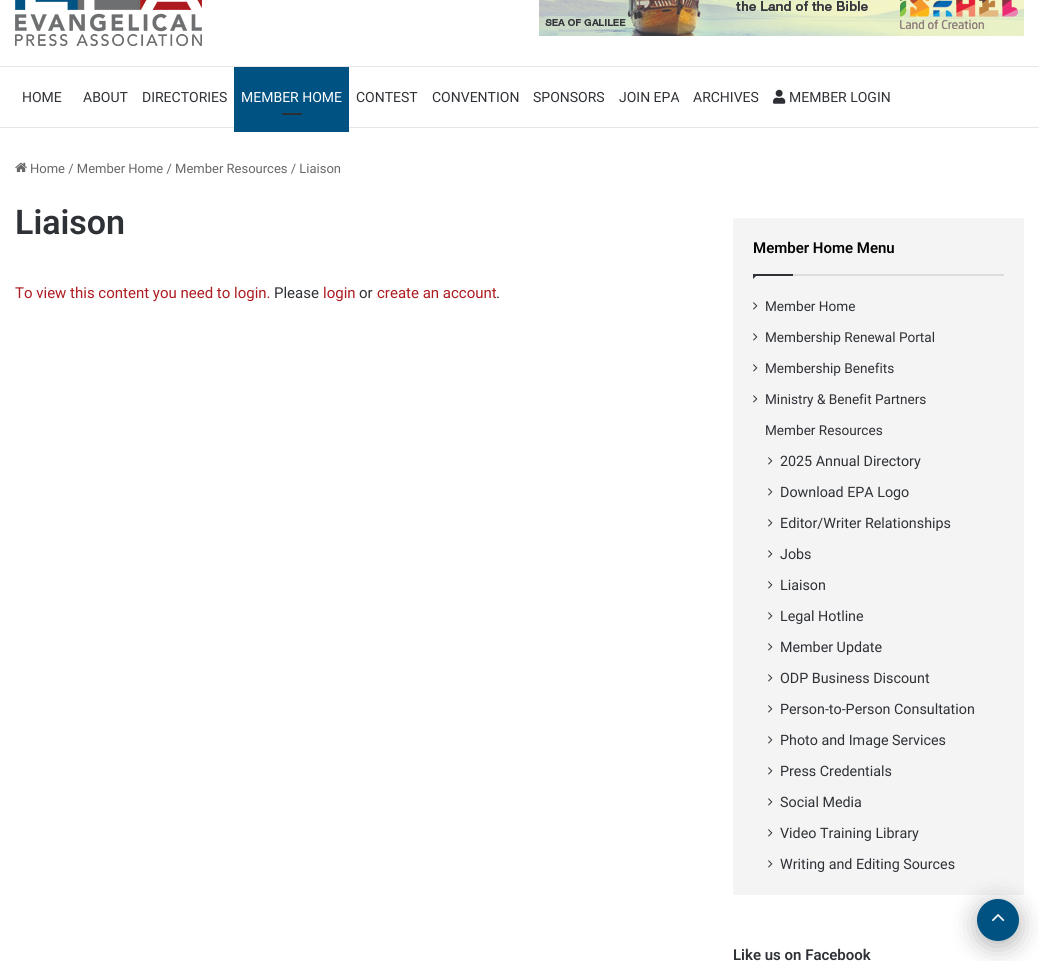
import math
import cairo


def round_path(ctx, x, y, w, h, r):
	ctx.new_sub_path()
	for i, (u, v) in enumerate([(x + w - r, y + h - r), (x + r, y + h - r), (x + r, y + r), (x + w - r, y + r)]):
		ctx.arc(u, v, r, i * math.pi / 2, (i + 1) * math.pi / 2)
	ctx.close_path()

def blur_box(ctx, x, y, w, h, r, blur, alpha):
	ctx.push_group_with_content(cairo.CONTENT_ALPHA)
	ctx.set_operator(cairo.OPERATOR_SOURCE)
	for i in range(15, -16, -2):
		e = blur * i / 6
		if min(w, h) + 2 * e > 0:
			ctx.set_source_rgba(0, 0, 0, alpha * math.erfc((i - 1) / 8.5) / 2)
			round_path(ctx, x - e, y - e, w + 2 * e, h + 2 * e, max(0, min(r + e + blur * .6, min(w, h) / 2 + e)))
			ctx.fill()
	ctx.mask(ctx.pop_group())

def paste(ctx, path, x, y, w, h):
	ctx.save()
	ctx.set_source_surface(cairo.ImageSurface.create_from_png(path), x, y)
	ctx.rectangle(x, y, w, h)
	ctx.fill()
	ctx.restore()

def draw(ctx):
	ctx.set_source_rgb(1, 1, 1)
	ctx.paint()
	paste(ctx, 'media/1.png', 15, 0, 187, 46)
	paste(ctx, 'media/2.png', 539, 0, 485, 36)
	ctx.set_source_rgb(0.902, 0.902, 0.902)
	ctx.rectangle(0, 66, 1039, 1)
	ctx.fill()
	ctx.rectangle(0, 127, 1039, 1)
	ctx.fill()
	ctx.select_font_face('Roboto')
	ctx.set_font_size(14)
	ctx.set_source_rgb(0.18, 0.192, 0.212)
	for x, y, s in [
		(22, 102, 'HOME'),
		(83, 102, 'ABOUT'),
		(142, 102, 'DIRECTORIES'),
	]:
		ctx.move_to(x, y)
		ctx.show_text(s)
	ctx.set_source_rgb(0, 0.322, 0.51)
	ctx.rectangle(234, 67, 115, 65)
	ctx.fill()
	ctx.set_source_rgb(1, 1, 1)
	ctx.move_to(241, 102)
	ctx.show_text('MEMBER HOME')
	ctx.set_source_rgb(0.173, 0.184, 0.204)
	ctx.rectangle(282, 113, 20, 2)
	ctx.fill()
	ctx.set_source_rgb(0.18, 0.192, 0.212)
	for x, y, s in [
		(356, 102, 'CONTEST'),
		(432, 102, 'CONVENTION'),
		(533, 102, 'SPONSORS'),
		(619, 102, 'JOIN EPA'),
		(693, 102, 'ARCHIVES'),
	]:
		ctx.move_to(x, y)
		ctx.show_text(s)
	paste(ctx, 'media/3.png', 773, 89, 13, 15)
	ctx.move_to(789, 102)
	ctx.show_text('MEMBER LOGIN')
	paste(ctx, 'media/4.png', 15, 162, 12, 11)
	ctx.set_font_size(13)
	ctx.set_source_rgb(0.408, 0.408, 0.408)
	ctx.move_to(30, 173)
	ctx.show_text('Home / Member Home / Member Resources / Liaison')
	ctx.select_font_face('Roboto SemiBold')
	ctx.set_font_size(34)
	ctx.set_source_rgb(0.18, 0.192, 0.212)
	ctx.move_to(15, 234)
	ctx.show_text('Liaison')
	ctx.select_font_face('Roboto')
	ctx.set_font_size(15)
	ctx.set_source_rgb(0.678, 0.106, 0.125)
	ctx.move_to(15, 298)
	ctx.show_text('To view this content you need to login.')
	ctx.set_source_rgb(0.18, 0.192, 0.212)
	ctx.move_to(274, 298)
	ctx.show_text('Please')
	ctx.set_source_rgb(0.678, 0.106, 0.125)
	ctx.move_to(323, 298)
	ctx.show_text('login')
	ctx.set_source_rgb(0.18, 0.192, 0.212)
	ctx.move_to(359, 298)
	ctx.show_text('or')
	ctx.set_source_rgb(0.678, 0.106, 0.125)
	ctx.move_to(377, 298)
	ctx.show_text('create an account')
	ctx.set_source_rgb(0.18, 0.192, 0.212)
	ctx.move_to(496, 298)
	ctx.show_text('.')
	ctx.set_source_rgb(0.957, 0.957, 0.957)
	round_path(ctx, 733, 218, 291, 677, 2)
	ctx.fill()
	ctx.set_source_rgb(0.863, 0.863, 0.863)
	ctx.rectangle(793, 274, 211, 2)
	ctx.fill()
	ctx.select_font_face('Roboto SemiBold')
	ctx.set_source_rgb(0.012, 0.012, 0.012)
	ctx.move_to(753, 253)
	ctx.show_text('Member Home Menu')
	ctx.set_source_rgb(0.18, 0.192, 0.212)
	ctx.new_path()
	ctx.move_to(753, 274)
	ctx.line_to(758, 274)
	ctx.line_to(753, 279)
	ctx.close_path()
	ctx.fill()
	ctx.rectangle(753, 274, 40, 2)
	ctx.fill()
	paste(ctx, 'media/5.png', 753, 302, 5, 8)
	ctx.select_font_face('Roboto')
	ctx.set_font_size(13.6)
	ctx.move_to(765, 311)
	ctx.show_text('Member Home')
	paste(ctx, 'media/5.png', 753, 333, 5, 8)
	ctx.move_to(765, 342)
	ctx.show_text('Membership Renewal Portal')
	paste(ctx, 'media/5.png', 753, 364, 5, 8)
	ctx.move_to(765, 373)
	ctx.show_text('Membership Benefits')
	paste(ctx, 'media/5.png', 753, 395, 5, 8)
	ctx.move_to(765, 404)
	ctx.show_text('Ministry & Benefit Partners')
	ctx.move_to(765, 435)
	ctx.show_text('Member Resources')
	paste(ctx, 'media/5.png', 768, 457, 5, 8)
	ctx.set_font_size(14.3)
	ctx.move_to(780, 466)
	ctx.show_text('2025 Annual Directory')
	paste(ctx, 'media/5.png', 768, 488, 5, 8)
	ctx.move_to(780, 497)
	ctx.show_text('Download EPA Logo')
	paste(ctx, 'media/5.png', 768, 519, 5, 8)
	ctx.move_to(780, 528)
	ctx.show_text('Editor/Writer Relationships')
	paste(ctx, 'media/5.png', 768, 550, 5, 8)
	ctx.move_to(780, 559)
	ctx.show_text('Jobs')
	paste(ctx, 'media/5.png', 768, 581, 5, 8)
	ctx.move_to(780, 590)
	ctx.show_text('Liaison')
	paste(ctx, 'media/5.png', 768, 612, 5, 8)
	ctx.move_to(780, 621)
	ctx.show_text('Legal Hotline')
	paste(ctx, 'media/5.png', 768, 643, 5, 8)
	ctx.move_to(780, 652)
	ctx.show_text('Member Update')
	paste(ctx, 'media/5.png', 768, 674, 5, 8)
	ctx.move_to(780, 683)
	ctx.show_text('ODP Business Discount')
	paste(ctx, 'media/5.png', 768, 705, 5, 8)
	ctx.move_to(780, 714)
	ctx.show_text('Person-to-Person Consultation')
	paste(ctx, 'media/5.png', 768, 736, 5, 8)
	ctx.move_to(780, 745)
	ctx.show_text('Photo and Image Services')
	paste(ctx, 'media/5.png', 768, 767, 5, 8)
	ctx.move_to(780, 776)
	ctx.show_text('Press Credentials')
	paste(ctx, 'media/5.png', 768, 798, 5, 8)
	ctx.move_to(780, 807)
	ctx.show_text('Social Media')
	paste(ctx, 'media/5.png', 768, 829, 5, 8)
	ctx.move_to(780, 838)
	ctx.show_text('Video Training Library')
	paste(ctx, 'media/5.png', 768, 860, 5, 8)
	ctx.move_to(780, 869)
	ctx.show_text('Writing and Editing Sources')
	ctx.select_font_face('Roboto SemiBold')
	ctx.set_font_size(15)
	ctx.move_to(733, 960)
	ctx.show_text('Like us on Facebook')
	ctx.set_source_rgb(0, 0, 0)
	blur_box(ctx, 977, 904, 42, 42, 21, 12.5, 0.3)
	ctx.set_source_rgb(0, 0.322, 0.51)
	ctx.arc(998, 920, 21, 0, 2 * math.pi)
	ctx.fill()
	paste(ctx, 'media/6.png', 992, 914, 13, 8)


surface = cairo.ImageSurface(cairo.FORMAT_RGB24, 1039, 961)
ctx = cairo.Context(surface)
options = cairo.FontOptions()
options.set_hint_metrics(cairo.HINT_METRICS_OFF)
options.set_hint_style(cairo.HINT_STYLE_NONE)
ctx.set_font_options(options)
ctx.set_miter_limit(4)
draw(ctx)
surface.write_to_png('image.png')
